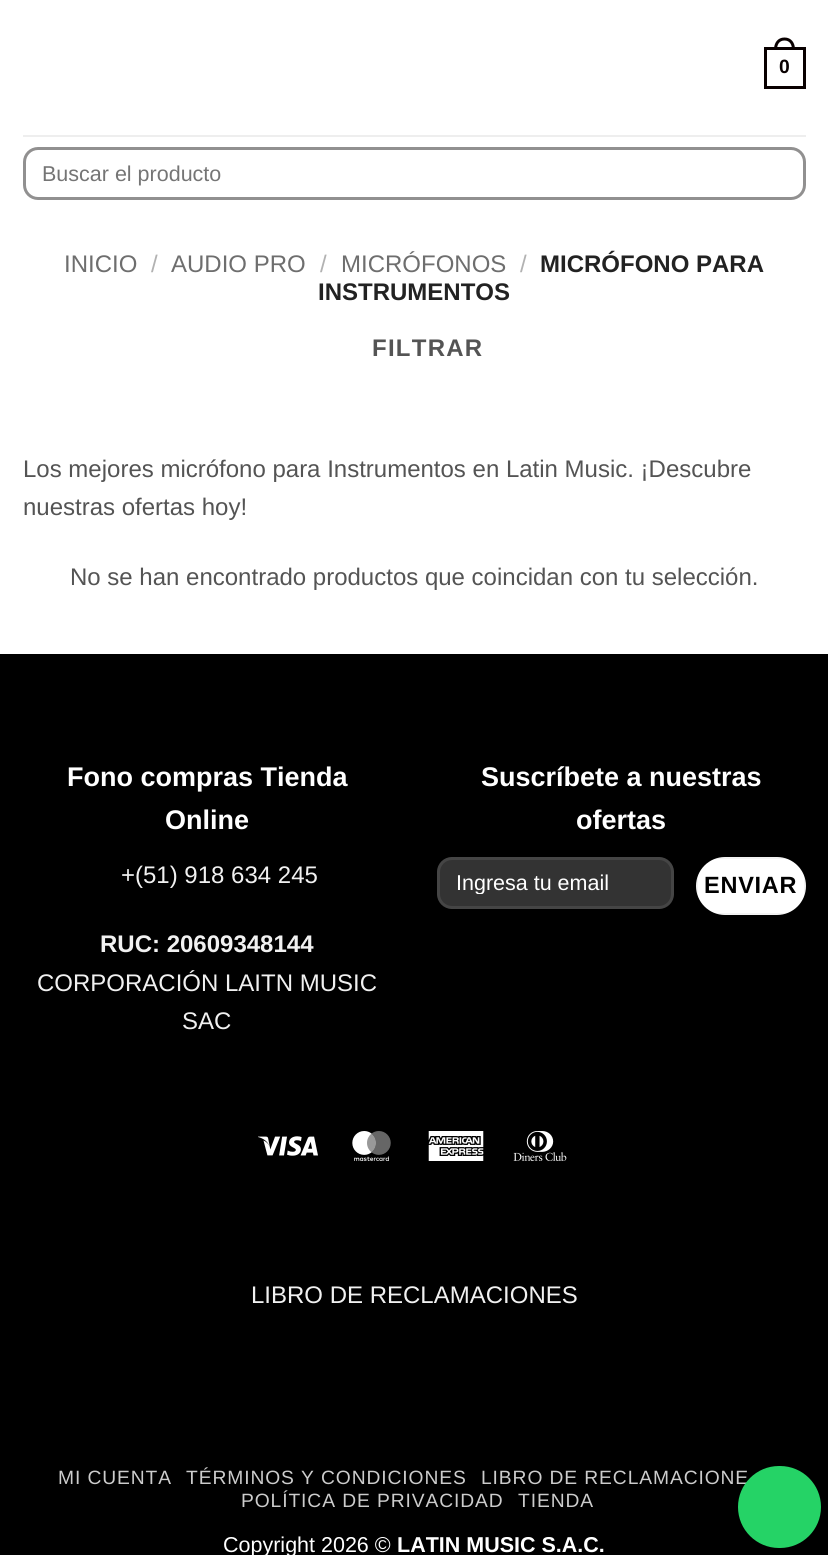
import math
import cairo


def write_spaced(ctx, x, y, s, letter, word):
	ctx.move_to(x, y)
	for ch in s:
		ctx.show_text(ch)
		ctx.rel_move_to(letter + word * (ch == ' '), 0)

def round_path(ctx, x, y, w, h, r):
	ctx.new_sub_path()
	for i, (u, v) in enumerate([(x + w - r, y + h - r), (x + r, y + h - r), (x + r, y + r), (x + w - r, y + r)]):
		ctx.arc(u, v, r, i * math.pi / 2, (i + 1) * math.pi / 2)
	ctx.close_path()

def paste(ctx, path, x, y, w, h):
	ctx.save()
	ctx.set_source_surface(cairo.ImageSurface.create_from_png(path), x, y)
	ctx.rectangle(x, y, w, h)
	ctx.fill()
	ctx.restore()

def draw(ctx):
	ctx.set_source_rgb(1, 1, 1)
	ctx.paint()
	ctx.rectangle(765.5, 48.5, 39, 39)
	ctx.set_source_rgb(0.039, 0, 0)
	ctx.set_line_width(3)
	ctx.stroke()
	ctx.set_fill_rule(cairo.FILL_RULE_EVEN_ODD)
	ctx.new_path()
	ctx.move_to(784.5, 37.5)
	ctx.curve_to(791.5, 37.5, 795, 43, 795, 49.5)
	ctx.line_to(774, 49.5)
	ctx.curve_to(774, 43, 777.5, 37.5, 784.5, 37.5)
	ctx.close_path()
	ctx.move_to(784.5, 40.5)
	ctx.curve_to(790, 40.5, 792, 45, 792, 49.5)
	ctx.line_to(777, 49.5)
	ctx.curve_to(777, 45, 779, 40.5, 784.5, 40.5)
	ctx.close_path()
	ctx.fill()
	ctx.select_font_face('Liberation Sans', cairo.FONT_SLANT_NORMAL, cairo.FONT_WEIGHT_BOLD)
	ctx.set_font_size(19.25)
	ctx.move_to(779, 73)
	ctx.show_text('0')
	ctx.set_source_rgb(0.933, 0.933, 0.933)
	ctx.rectangle(23, 135, 783, 2)
	ctx.fill()
	round_path(ctx, 24.5, 148.5, 780, 50, 13.5)
	ctx.set_source_rgb(0.569, 0.565, 0.565)
	ctx.stroke()
	ctx.select_font_face('Liberation Sans')
	ctx.set_font_size(21.5)
	ctx.set_source_rgb(0.459, 0.459, 0.459)
	ctx.move_to(42, 181)
	ctx.show_text('Buscar el producto')
	ctx.set_font_size(24)
	ctx.set_source_rgb(0.431, 0.431, 0.431)
	ctx.move_to(64, 272)
	ctx.show_text('INICIO')
	ctx.set_source_rgb(0.698, 0.698, 0.698)
	ctx.move_to(151, 272)
	ctx.show_text('/')
	ctx.set_source_rgb(0.431, 0.431, 0.431)
	ctx.move_to(171, 272)
	ctx.show_text('AUDIO PRO')
	ctx.set_source_rgb(0.698, 0.698, 0.698)
	ctx.move_to(320, 272)
	ctx.show_text('/')
	ctx.set_source_rgb(0.431, 0.431, 0.431)
	ctx.move_to(341, 272)
	ctx.show_text('MICRÓFONOS')
	ctx.set_source_rgb(0.698, 0.698, 0.698)
	ctx.move_to(520, 272)
	ctx.show_text('/')
	ctx.select_font_face('Liberation Sans', cairo.FONT_SLANT_NORMAL, cairo.FONT_WEIGHT_BOLD)
	ctx.set_source_rgb(0.133, 0.133, 0.133)
	ctx.move_to(540, 272)
	ctx.show_text('MICRÓFONO PARA')
	ctx.move_to(318, 300)
	ctx.show_text('INSTRUMENTOS')
	ctx.set_source_rgb(0.329, 0.329, 0.329)
	write_spaced(ctx, 372, 356, 'FILTRAR', 1.25, 0)
	ctx.select_font_face('Liberation Sans')
	for x, y, s in [
		(23, 477, 'Los mejores micrófono para Instrumentos en Latin Music. ¡Descubre'),
		(23, 515, 'nuestras ofertas hoy!'),
		(70, 585, 'No se han encontrado productos que coincidan con tu selección.'),
	]:
		ctx.move_to(x, y)
		ctx.show_text(s)
	ctx.set_source_rgb(0, 0, 0)
	ctx.rectangle(0, 654, 828, 901)
	ctx.fill()
	ctx.select_font_face('Liberation Sans', cairo.FONT_SLANT_NORMAL, cairo.FONT_WEIGHT_BOLD)
	ctx.set_font_size(27)
	ctx.set_source_rgb(1, 1, 1)
	ctx.move_to(67, 786)
	ctx.show_text('Fono compras Tienda')
	ctx.move_to(165, 829)
	ctx.show_text('Online')
	ctx.select_font_face('Liberation Sans')
	ctx.set_font_size(24)
	ctx.set_source_rgb(0.945, 0.945, 0.945)
	ctx.move_to(121, 883)
	ctx.show_text('+(51) 918 634 245')
	ctx.select_font_face('Liberation Sans', cairo.FONT_SLANT_NORMAL, cairo.FONT_WEIGHT_BOLD)
	ctx.move_to(100, 952)
	ctx.show_text('RUC: 20609348144')
	ctx.select_font_face('Liberation Sans')
	ctx.move_to(37, 991)
	ctx.show_text('CORPORACIÓN LAITN MUSIC')
	ctx.move_to(182, 1029)
	ctx.show_text('SAC')
	ctx.select_font_face('Liberation Sans', cairo.FONT_SLANT_NORMAL, cairo.FONT_WEIGHT_BOLD)
	ctx.set_font_size(27)
	ctx.set_source_rgb(1, 1, 1)
	ctx.move_to(481, 786)
	ctx.show_text('Suscríbete a nuestras')
	ctx.move_to(576, 829)
	ctx.show_text('ofertas')
	ctx.set_source_rgb(0.2, 0.2, 0.2)
	round_path(ctx, 437, 857, 237, 52, 15)
	ctx.fill()
	round_path(ctx, 438.5, 858.5, 234, 49, 13.5)
	ctx.set_source_rgba(1, 1, 1, 0.09)
	ctx.stroke()
	ctx.save()
	ctx.set_fill_rule(cairo.FILL_RULE_WINDING)
	ctx.rectangle(456, 870, 198, 24)
	ctx.clip()
	ctx.select_font_face('Liberation Sans')
	ctx.set_font_size(21.5)
	ctx.set_source_rgb(1, 1, 1)
	ctx.move_to(456, 890)
	ctx.show_text('Ingresa tu email')
	ctx.restore()
	ctx.set_source_rgb(1, 1, 1)
	round_path(ctx, 696, 857, 110, 58, 29)
	ctx.fill()
	ctx.rectangle(697, 858, 108, 56)
	ctx.set_source_rgba(0, 0, 0, 0.05)
	ctx.set_line_width(2)
	ctx.stroke()
	ctx.set_font_size(23.5)
	ctx.set_source_rgb(0, 0, 0)
	write_spaced(ctx, 704, 893, 'ENVIAR', 0.75, 0)
	paste(ctx, 'media/1.png', 258, 1136, 60, 20)
	paste(ctx, 'media/2.png', 352, 1131, 39, 30)
	paste(ctx, 'media/3.png', 428, 1131, 56, 30)
	paste(ctx, 'media/4.png', 513, 1131, 54, 30)
	ctx.select_font_face('Liberation Sans')
	ctx.set_font_size(24)
	ctx.set_source_rgb(0.945, 0.945, 0.945)
	ctx.move_to(251, 1303)
	ctx.show_text('LIBRO DE RECLAMACIONES')
	ctx.set_font_size(19.25)
	ctx.set_source_rgb(0.8, 0.8, 0.8)
	write_spaced(ctx, 481, 1484, 'LIBRO DE RECLAMACIONE', 0.9, 0)
	ctx.set_source_rgb(0.145, 0.827, 0.4)
	round_path(ctx, 738, 1466, 83, 82, 41)
	ctx.fill()
	ctx.set_source_rgb(0.8, 0.8, 0.8)
	for x, y, s in [
		(58, 1484, 'MI CUENTA'),
		(186, 1484, 'TÉRMINOS Y CONDICIONES'),
		(241, 1507, 'POLÍTICA DE PRIVACIDAD'),
		(518, 1507, 'TIENDA'),
	]:
		write_spaced(ctx, x, y, s, 0.9, 0)
	ctx.set_font_size(21.5)
	ctx.set_source_rgb(1, 1, 1)
	ctx.move_to(223, 1552)
	ctx.show_text('Copyright 2026 ©')
	ctx.select_font_face('Liberation Sans', cairo.FONT_SLANT_NORMAL, cairo.FONT_WEIGHT_BOLD)
	ctx.move_to(397, 1552)
	ctx.show_text('LATIN MUSIC S.A.C.')


surface = cairo.ImageSurface(cairo.FORMAT_RGB24, 828, 1555)
ctx = cairo.Context(surface)
options = cairo.FontOptions()
options.set_hint_metrics(cairo.HINT_METRICS_OFF)
options.set_hint_style(cairo.HINT_STYLE_NONE)
ctx.set_font_options(options)
ctx.set_miter_limit(4)
draw(ctx)
surface.write_to_png('image.png')
